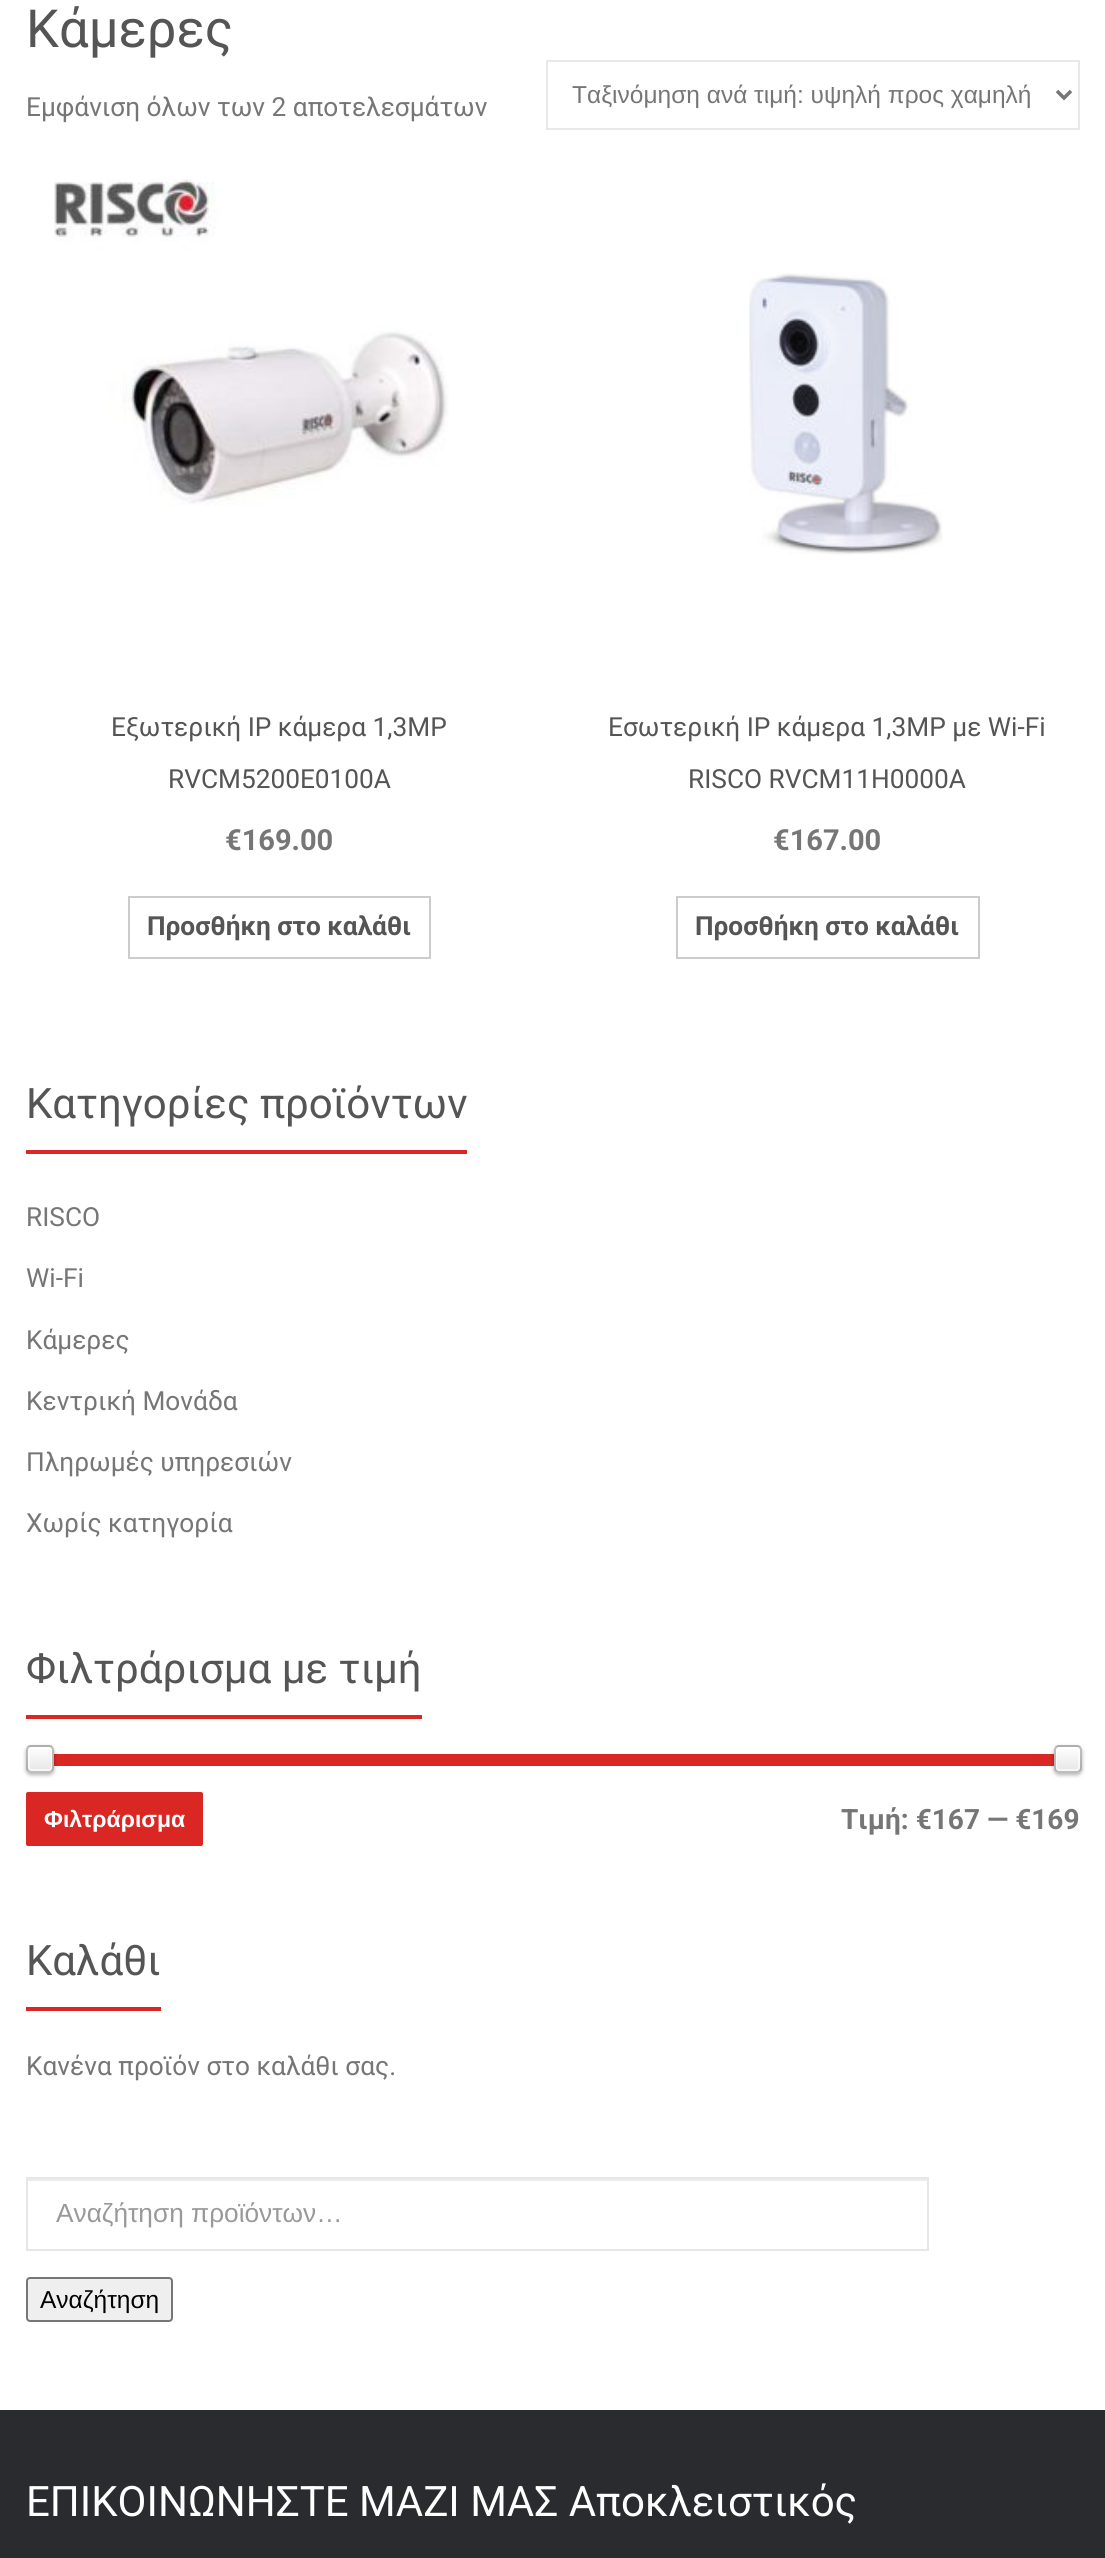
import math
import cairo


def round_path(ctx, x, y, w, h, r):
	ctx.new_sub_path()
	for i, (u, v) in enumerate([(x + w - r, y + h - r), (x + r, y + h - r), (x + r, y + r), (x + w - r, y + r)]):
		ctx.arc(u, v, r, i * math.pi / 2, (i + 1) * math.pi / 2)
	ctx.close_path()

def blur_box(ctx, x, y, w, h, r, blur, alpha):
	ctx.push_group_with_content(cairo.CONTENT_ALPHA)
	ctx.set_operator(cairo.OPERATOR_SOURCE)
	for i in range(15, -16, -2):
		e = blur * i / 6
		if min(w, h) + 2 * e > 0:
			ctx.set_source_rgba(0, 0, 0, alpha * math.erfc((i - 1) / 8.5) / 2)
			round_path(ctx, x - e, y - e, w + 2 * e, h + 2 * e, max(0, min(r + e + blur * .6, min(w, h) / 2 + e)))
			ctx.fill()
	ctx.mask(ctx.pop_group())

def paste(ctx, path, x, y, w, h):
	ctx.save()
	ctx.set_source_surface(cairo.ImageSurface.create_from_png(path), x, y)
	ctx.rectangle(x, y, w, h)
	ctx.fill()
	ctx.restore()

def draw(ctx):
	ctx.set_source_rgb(1, 1, 1)
	ctx.paint()
	ctx.select_font_face('Roboto')
	ctx.set_font_size(52.5)
	ctx.set_source_rgb(0.333, 0.333, 0.333)
	ctx.move_to(26, 47)
	ctx.show_text('Κάμερες')
	ctx.set_font_size(26.25)
	ctx.set_source_rgb(0.463, 0.463, 0.463)
	ctx.move_to(26, 116)
	ctx.show_text('Εμφάνιση όλων των 2 αποτελεσμάτων')
	ctx.rectangle(547, 61, 532, 68)
	ctx.set_source_rgb(0.914, 0.914, 0.914)
	ctx.stroke()
	ctx.new_path()
	ctx.move_to(1057, 91)
	ctx.line_to(1064, 98)
	ctx.line_to(1071, 91)
	ctx.set_source_rgb(0.463, 0.463, 0.463)
	ctx.set_line_width(3.5)
	ctx.stroke()
	ctx.select_font_face('Liberation Sans')
	ctx.set_font_size(24.5)
	ctx.move_to(572, 103)
	ctx.show_text('Ταξινόμηση ανά τιμή: υψηλή προς χαμηλή')
	paste(ctx, 'media/1.png', 54, 179, 395, 327)
	ctx.select_font_face('Roboto')
	ctx.set_font_size(26.25)
	ctx.set_source_rgb(0.333, 0.333, 0.333)
	ctx.move_to(111, 736)
	ctx.show_text('Εξωτερική IP κάμερα 1,3MP')
	ctx.move_to(168, 788)
	ctx.show_text('RVCM5200E0100A')
	ctx.select_font_face('Roboto', cairo.FONT_SLANT_NORMAL, cairo.FONT_WEIGHT_BOLD)
	ctx.set_font_size(29)
	ctx.set_source_rgb(0.463, 0.463, 0.463)
	ctx.move_to(225, 850)
	ctx.show_text('€169.00')
	ctx.rectangle(129, 897, 301, 61)
	ctx.set_source_rgb(0.8, 0.8, 0.8)
	ctx.set_line_width(2)
	ctx.stroke()
	ctx.set_font_size(26.25)
	ctx.set_source_rgb(0.333, 0.333, 0.333)
	ctx.move_to(147, 935)
	ctx.show_text('Προσθήκη στο καλάθι')
	paste(ctx, 'media/2.png', 749, 273, 194, 282)
	ctx.select_font_face('Roboto')
	ctx.move_to(608, 736)
	ctx.show_text('Εσωτερική IP κάμερα 1,3MP με Wi-Fi')
	ctx.move_to(688, 788)
	ctx.show_text('RISCO RVCM11H0000A')
	ctx.select_font_face('Roboto', cairo.FONT_SLANT_NORMAL, cairo.FONT_WEIGHT_BOLD)
	ctx.set_font_size(29)
	ctx.set_source_rgb(0.463, 0.463, 0.463)
	ctx.move_to(773, 850)
	ctx.show_text('€167.00')
	ctx.rectangle(677, 897, 302, 61)
	ctx.set_source_rgb(0.8, 0.8, 0.8)
	ctx.stroke()
	ctx.set_font_size(26.25)
	ctx.set_source_rgb(0.333, 0.333, 0.333)
	ctx.move_to(695, 935)
	ctx.show_text('Προσθήκη στο καλάθι')
	ctx.set_source_rgb(0.859, 0.153, 0.137)
	ctx.rectangle(26, 1150, 441, 4)
	ctx.fill()
	ctx.select_font_face('Roboto')
	ctx.set_font_size(42)
	ctx.set_source_rgb(0.333, 0.333, 0.333)
	ctx.move_to(26, 1118)
	ctx.show_text('Κατηγορίες προϊόντων')
	ctx.set_font_size(26.25)
	ctx.set_source_rgb(0.463, 0.463, 0.463)
	for x, y, s in [
		(26, 1226, 'RISCO'),
		(26, 1287, 'Wi-Fi'),
		(26, 1349, 'Κάμερες'),
		(26, 1410, 'Κεντρική Μονάδα'),
		(26, 1471, 'Πληρωμές υπηρεσιών'),
		(26, 1532, 'Χωρίς κατηγορία'),
	]:
		ctx.move_to(x, y)
		ctx.show_text(s)
	ctx.set_source_rgb(0.859, 0.153, 0.137)
	ctx.rectangle(26, 1715, 396, 4)
	ctx.fill()
	ctx.set_font_size(42)
	ctx.set_source_rgb(0.333, 0.333, 0.333)
	ctx.move_to(26, 1683)
	ctx.show_text('Φιλτράρισμα με τιμή')
	ctx.set_source_rgb(0.859, 0.153, 0.137)
	ctx.rectangle(54, 1754, 1000, 12)
	ctx.fill()
	ctx.set_source_rgb(0, 0, 0)
	blur_box(ctx, 26, 1747, 28, 28, 5, 2, 0.3)
	ctx.save()
	round_path(ctx, 26, 1745, 28, 28, 5)
	ctx.clip()
	gradient = cairo.LinearGradient(40, 1722, 40, 1747)
	gradient.add_color_stop_rgba(0, 0.996, 0.996, 0.996, 1)
	gradient.add_color_stop_rgba(1, 0.906, 0.906, 0.906, 1)
	ctx.set_source(gradient)
	ctx.rectangle(26, 1745, 28, 2)
	ctx.fill()
	gradient = cairo.LinearGradient(40, 1747, 40, 1771)
	gradient.add_color_stop_rgba(0, 0.996, 0.996, 0.996, 1)
	gradient.add_color_stop_rgba(1, 0.906, 0.906, 0.906, 1)
	ctx.set_source(gradient)
	ctx.rectangle(26, 1747, 28, 24)
	ctx.fill()
	gradient = cairo.LinearGradient(40, 1771, 40, 1796)
	gradient.add_color_stop_rgba(0, 0.996, 0.996, 0.996, 1)
	gradient.add_color_stop_rgba(1, 0.906, 0.906, 0.906, 1)
	ctx.set_source(gradient)
	ctx.rectangle(26, 1771, 28, 2)
	ctx.fill()
	ctx.restore()
	round_path(ctx, 29, 1748, 23, 22, 3)
	ctx.set_source_rgba(1, 1, 1, 0.65)
	ctx.stroke()
	round_path(ctx, 27, 1746, 26, 26, 4)
	ctx.set_source_rgba(0, 0, 0, 0.25)
	ctx.stroke()
	ctx.set_source_rgb(0, 0, 0)
	blur_box(ctx, 1054, 1747, 28, 28, 5, 2, 0.3)
	ctx.save()
	round_path(ctx, 1054, 1745, 28, 28, 5)
	ctx.clip()
	gradient = cairo.LinearGradient(1068, 1722, 1068, 1747)
	gradient.add_color_stop_rgba(0, 0.996, 0.996, 0.996, 1)
	gradient.add_color_stop_rgba(1, 0.906, 0.906, 0.906, 1)
	ctx.set_source(gradient)
	ctx.rectangle(1054, 1745, 28, 2)
	ctx.fill()
	gradient = cairo.LinearGradient(1068, 1747, 1068, 1771)
	gradient.add_color_stop_rgba(0, 0.996, 0.996, 0.996, 1)
	gradient.add_color_stop_rgba(1, 0.906, 0.906, 0.906, 1)
	ctx.set_source(gradient)
	ctx.rectangle(1054, 1747, 28, 24)
	ctx.fill()
	gradient = cairo.LinearGradient(1068, 1771, 1068, 1796)
	gradient.add_color_stop_rgba(0, 0.996, 0.996, 0.996, 1)
	gradient.add_color_stop_rgba(1, 0.906, 0.906, 0.906, 1)
	ctx.set_source(gradient)
	ctx.rectangle(1054, 1771, 28, 2)
	ctx.fill()
	ctx.restore()
	round_path(ctx, 1056, 1748, 23, 22, 3)
	ctx.set_source_rgba(1, 1, 1, 0.65)
	ctx.stroke()
	round_path(ctx, 1055, 1746, 26, 26, 4)
	ctx.set_source_rgba(0, 0, 0, 0.25)
	ctx.stroke()
	ctx.set_source_rgb(0.859, 0.153, 0.137)
	round_path(ctx, 26, 1792, 177, 54, 2)
	ctx.fill()
	ctx.select_font_face('Liberation Sans', cairo.FONT_SLANT_NORMAL, cairo.FONT_WEIGHT_BOLD)
	ctx.set_font_size(23)
	ctx.set_source_rgb(1, 1, 1)
	ctx.move_to(44, 1827)
	ctx.show_text('Φιλτράρισμα')
	ctx.select_font_face('Roboto', cairo.FONT_SLANT_NORMAL, cairo.FONT_WEIGHT_BOLD)
	ctx.set_font_size(28)
	ctx.set_source_rgb(0.463, 0.463, 0.463)
	ctx.move_to(841, 1829)
	ctx.show_text('Τιμή: €167 — €169')
	ctx.set_source_rgb(0.859, 0.153, 0.137)
	ctx.rectangle(26, 2007, 135, 4)
	ctx.fill()
	ctx.select_font_face('Roboto')
	ctx.set_font_size(42)
	ctx.set_source_rgb(0.333, 0.333, 0.333)
	ctx.move_to(26, 1975)
	ctx.show_text('Καλάθι')
	ctx.set_font_size(26.25)
	ctx.set_source_rgb(0.463, 0.463, 0.463)
	ctx.move_to(26, 2075)
	ctx.show_text('Κανένα προϊόν στο καλάθι σας.')
	ctx.set_source_rgb(0.925, 0.925, 0.925)
	ctx.rectangle(28, 2179, 900, 2)
	ctx.fill()
	ctx.rectangle(27, 2178, 901, 72)
	ctx.set_source_rgb(0.894, 0.91, 0.918)
	ctx.stroke()
	ctx.select_font_face('Liberation Sans')
	ctx.set_source_rgb(0.6, 0.6, 0.6)
	ctx.move_to(56, 2222)
	ctx.show_text('Αναζήτηση προϊόντων…')
	ctx.set_source_rgb(0.937, 0.937, 0.937)
	round_path(ctx, 27, 2278, 145, 43, 3)
	ctx.fill_preserve()
	ctx.set_source_rgb(0.463, 0.463, 0.463)
	ctx.stroke()
	ctx.set_font_size(24.5)
	ctx.set_source_rgb(0, 0, 0)
	ctx.move_to(40, 2308)
	ctx.show_text('Αναζήτηση')
	ctx.set_source_rgb(0.165, 0.169, 0.18)
	ctx.rectangle(0, 2410, 1105, 148)
	ctx.fill()
	ctx.select_font_face('Roboto')
	ctx.set_font_size(42)
	ctx.set_source_rgb(1, 1, 1)
	ctx.move_to(26, 2516)
	ctx.show_text('ΕΠΙΚΟΙΝΩΝΗΣΤΕ ΜΑΖΙ ΜΑΣ Αποκλειστικός')


surface = cairo.ImageSurface(cairo.FORMAT_RGB24, 1105, 2558)
ctx = cairo.Context(surface)
options = cairo.FontOptions()
options.set_hint_metrics(cairo.HINT_METRICS_OFF)
options.set_hint_style(cairo.HINT_STYLE_NONE)
ctx.set_font_options(options)
ctx.set_miter_limit(4)
draw(ctx)
surface.write_to_png('image.png')
